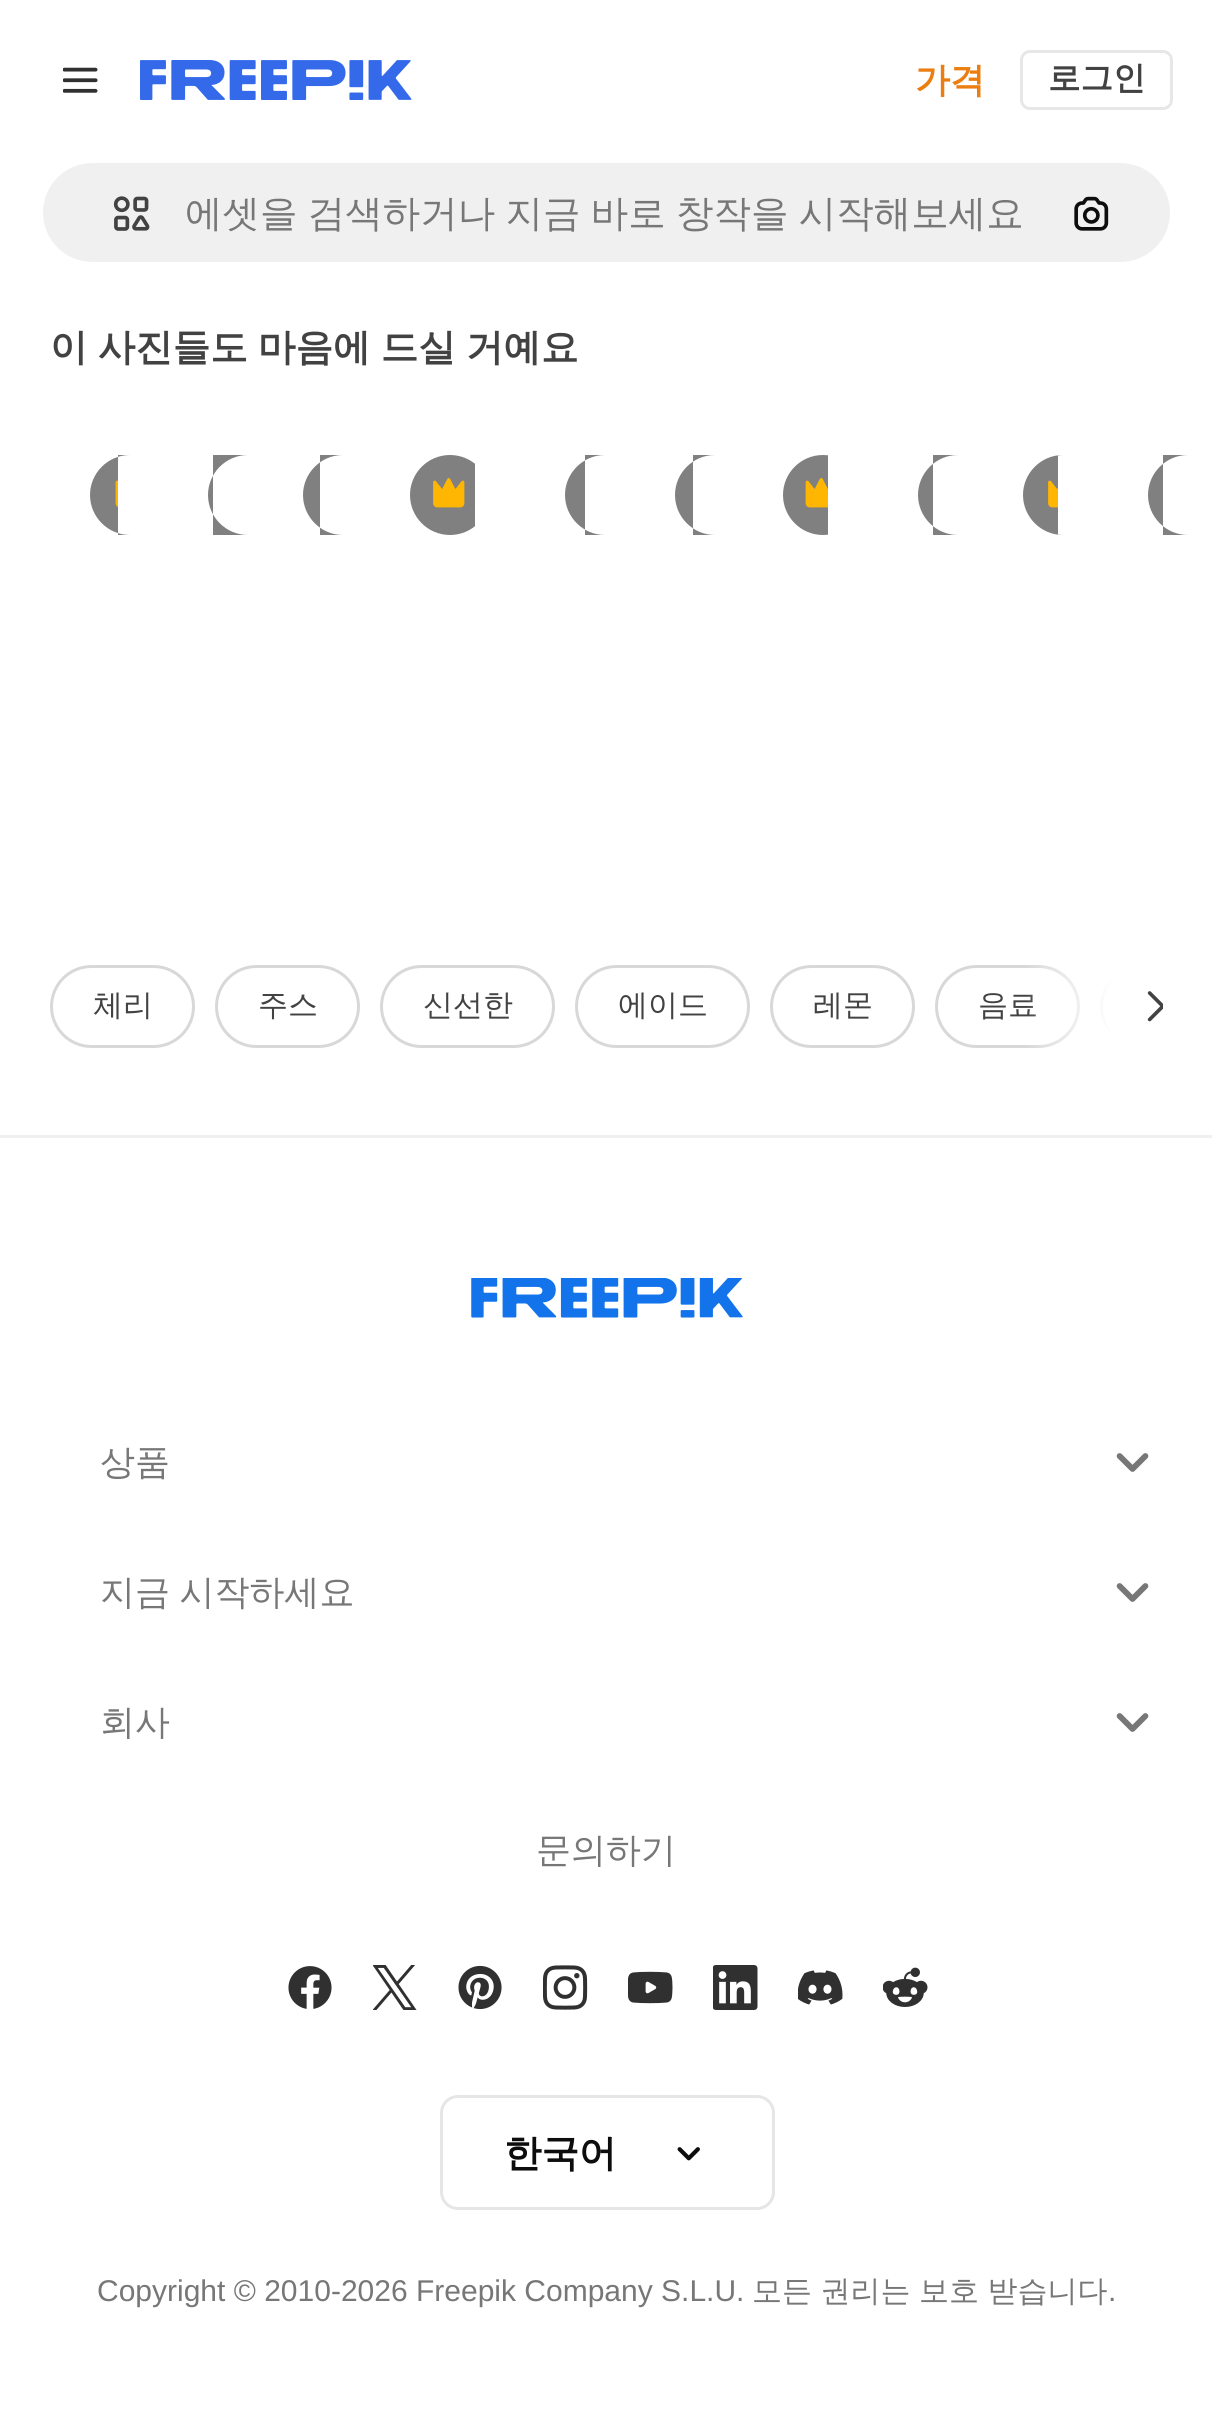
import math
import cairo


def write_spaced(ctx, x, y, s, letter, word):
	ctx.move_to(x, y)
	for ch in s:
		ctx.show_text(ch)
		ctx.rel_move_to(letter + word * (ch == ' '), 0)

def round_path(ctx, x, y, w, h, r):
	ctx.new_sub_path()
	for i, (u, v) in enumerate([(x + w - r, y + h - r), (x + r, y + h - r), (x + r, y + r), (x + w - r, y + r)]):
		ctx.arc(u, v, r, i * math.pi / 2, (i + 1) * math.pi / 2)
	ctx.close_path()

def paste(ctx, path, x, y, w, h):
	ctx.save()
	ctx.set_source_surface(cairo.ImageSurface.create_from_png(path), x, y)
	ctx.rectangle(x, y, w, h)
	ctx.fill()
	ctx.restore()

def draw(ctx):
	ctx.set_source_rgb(1, 1, 1)
	ctx.paint()
	paste(ctx, 'media/1.png', 63, 67, 35, 26)
	paste(ctx, 'media/2.png', 140, 60, 272, 40)
	ctx.select_font_face('WenQuanYi Zen Hei', cairo.FONT_SLANT_NORMAL, cairo.FONT_WEIGHT_BOLD)
	ctx.set_font_size(35)
	ctx.set_source_rgb(0.918, 0.494, 0.067)
	ctx.move_to(915, 92)
	ctx.show_text('가격')
	round_path(ctx, 1021.5, 51.5, 150, 57, 8.5)
	ctx.set_source_rgb(0.906, 0.906, 0.906)
	ctx.set_line_width(3)
	ctx.stroke()
	ctx.set_font_size(32.5)
	ctx.set_source_rgb(0.259, 0.259, 0.259)
	ctx.move_to(1048, 89)
	ctx.show_text('로그인')
	ctx.set_source_rgb(0.941, 0.941, 0.941)
	round_path(ctx, 41.5, 161.5, 1130, 102, 51)
	ctx.fill_preserve()
	ctx.set_source_rgb(1, 1, 1)
	ctx.stroke()
	paste(ctx, 'media/3.png', 113, 196, 37, 35)
	ctx.select_font_face('WenQuanYi Zen Hei Medium')
	ctx.set_font_size(37.5)
	ctx.set_source_rgb(0.467, 0.467, 0.467)
	write_spaced(ctx, 185, 226, '에셋을 검색하거나 지금 바로 창작을 시작해보세요', 0, -1)
	paste(ctx, 'media/4.png', 1074, 196, 35, 35)
	ctx.select_font_face('WenQuanYi Zen Hei', cairo.FONT_SLANT_NORMAL, cairo.FONT_WEIGHT_BOLD)
	ctx.set_source_rgb(0.259, 0.259, 0.259)
	write_spaced(ctx, 50, 360, '이 사진들도 마음에 드실 거예요', 0, -1)
	ctx.set_source_rgb(0.502, 0.502, 0.502)
	ctx.new_path()
	ctx.move_to(130, 455)
	ctx.line_to(118, 455)
	ctx.line_to(118, 535)
	ctx.line_to(130, 535)
	ctx.curve_to(108, 535, 90, 517, 90, 495)
	ctx.curve_to(90, 473, 108, 455, 130, 455)
	ctx.close_path()
	ctx.fill()
	paste(ctx, 'media/5.png', 115, 480, 3, 27)
	ctx.new_path()
	ctx.move_to(248, 455)
	ctx.line_to(213, 455)
	ctx.line_to(213, 535)
	ctx.line_to(248, 535)
	ctx.curve_to(226, 535, 208, 517, 208, 495)
	ctx.curve_to(208, 473, 226, 455, 248, 455)
	ctx.close_path()
	ctx.fill()
	ctx.new_path()
	ctx.move_to(343, 455)
	ctx.line_to(320, 455)
	ctx.line_to(320, 535)
	ctx.line_to(343, 535)
	ctx.curve_to(321, 535, 303, 517, 303, 495)
	ctx.curve_to(303, 473, 321, 455, 343, 455)
	ctx.close_path()
	ctx.fill()
	ctx.save()
	round_path(ctx, 370, 415, 105, 500, 40)
	ctx.clip()
	ctx.arc(450, 495, 40, 0, 2 * math.pi)
	ctx.fill()
	ctx.restore()
	paste(ctx, 'media/6.png', 433, 478, 32, 30)
	ctx.new_path()
	ctx.move_to(605, 455)
	ctx.line_to(585, 455)
	ctx.line_to(585, 535)
	ctx.line_to(605, 535)
	ctx.curve_to(583, 535, 565, 517, 565, 495)
	ctx.curve_to(565, 473, 583, 455, 605, 455)
	ctx.close_path()
	ctx.fill()
	ctx.new_path()
	ctx.move_to(715, 455)
	ctx.line_to(693, 455)
	ctx.line_to(693, 535)
	ctx.line_to(715, 535)
	ctx.curve_to(693, 535, 675, 517, 675, 495)
	ctx.curve_to(675, 473, 693, 455, 715, 455)
	ctx.close_path()
	ctx.fill()
	ctx.save()
	round_path(ctx, 743, 415, 85, 500, 40)
	ctx.clip()
	ctx.arc(823, 495, 40, 0, 2 * math.pi)
	ctx.fill()
	ctx.restore()
	paste(ctx, 'media/7.png', 805, 478, 23, 30)
	ctx.new_path()
	ctx.move_to(958, 455)
	ctx.line_to(933, 455)
	ctx.line_to(933, 535)
	ctx.line_to(958, 535)
	ctx.curve_to(936, 535, 918, 517, 918, 495)
	ctx.curve_to(918, 473, 936, 455, 958, 455)
	ctx.close_path()
	ctx.fill()
	ctx.new_path()
	ctx.move_to(1063, 455)
	ctx.line_to(1058, 455)
	ctx.line_to(1058, 535)
	ctx.line_to(1063, 535)
	ctx.curve_to(1041, 535, 1023, 517, 1023, 495)
	ctx.curve_to(1023, 473, 1041, 455, 1063, 455)
	ctx.close_path()
	ctx.fill()
	paste(ctx, 'media/8.png', 1048, 480, 10, 28)
	ctx.new_path()
	ctx.move_to(1188, 455)
	ctx.line_to(1163, 455)
	ctx.line_to(1163, 535)
	ctx.line_to(1188, 535)
	ctx.curve_to(1166, 535, 1148, 517, 1148, 495)
	ctx.curve_to(1148, 473, 1166, 455, 1188, 455)
	ctx.close_path()
	ctx.fill()
	round_path(ctx, 51.5, 966.5, 142, 80, 40)
	ctx.set_source_rgb(0.847, 0.847, 0.847)
	ctx.stroke()
	ctx.select_font_face('WenQuanYi Zen Hei Medium')
	ctx.set_font_size(30)
	ctx.set_source_rgb(0.259, 0.259, 0.259)
	ctx.move_to(93, 1015)
	ctx.show_text('체리')
	round_path(ctx, 216.5, 966.5, 142, 80, 40)
	ctx.set_source_rgb(0.847, 0.847, 0.847)
	ctx.stroke()
	ctx.set_source_rgb(0.259, 0.259, 0.259)
	ctx.move_to(258, 1015)
	ctx.show_text('주스')
	round_path(ctx, 381.5, 966.5, 172, 80, 40)
	ctx.set_source_rgb(0.847, 0.847, 0.847)
	ctx.stroke()
	ctx.set_source_rgb(0.259, 0.259, 0.259)
	ctx.move_to(423, 1015)
	ctx.show_text('신선한')
	round_path(ctx, 576.5, 966.5, 172, 80, 40)
	ctx.set_source_rgb(0.847, 0.847, 0.847)
	ctx.stroke()
	ctx.set_source_rgb(0.259, 0.259, 0.259)
	ctx.move_to(618, 1015)
	ctx.show_text('에이드')
	round_path(ctx, 771.5, 966.5, 142, 80, 40)
	ctx.set_source_rgb(0.847, 0.847, 0.847)
	ctx.stroke()
	ctx.set_source_rgb(0.259, 0.259, 0.259)
	ctx.move_to(813, 1015)
	ctx.show_text('레몬')
	round_path(ctx, 936.5, 966.5, 142, 80, 40)
	ctx.set_source_rgb(0.847, 0.847, 0.847)
	ctx.stroke()
	ctx.set_source_rgb(0.259, 0.259, 0.259)
	ctx.move_to(978, 1015)
	ctx.show_text('음료')
	ctx.save()
	ctx.rectangle(50, 965, 1113, 83)
	ctx.clip()
	round_path(ctx, 1101.5, 966.5, 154, 80, 40)
	ctx.set_source_rgb(0.847, 0.847, 0.847)
	ctx.stroke()
	ctx.restore()
	ctx.set_source_rgb(1, 1, 1)
	ctx.rectangle(1113, 965, 50, 83)
	ctx.fill()
	gradient = cairo.LinearGradient(1113, 1006, 1025, 1006)
	gradient.add_color_stop_rgba(0, 1, 1, 1, 1)
	gradient.add_color_stop_rgba(1, 1, 1, 1, 0)
	ctx.set_source(gradient)
	ctx.rectangle(1027, 965, 86, 83)
	ctx.fill()
	paste(ctx, 'media/9.png', 1147, 991, 16, 31)
	ctx.set_source_rgb(0.941, 0.941, 0.941)
	ctx.rectangle(0, 1135, 1212, 3)
	ctx.fill()
	paste(ctx, 'media/10.png', 471, 1278, 272, 40)
	ctx.set_font_size(35)
	ctx.set_source_rgb(0.467, 0.467, 0.467)
	ctx.move_to(100, 1474)
	ctx.show_text('상품')
	paste(ctx, 'media/11.png', 1116, 1453, 33, 19)
	write_spaced(ctx, 100, 1604, '지금 시작하세요', 0, -1)
	paste(ctx, 'media/11.png', 1116, 1583, 33, 19)
	ctx.move_to(100, 1734)
	ctx.show_text('회사')
	paste(ctx, 'media/11.png', 1116, 1713, 33, 19)
	ctx.move_to(536, 1862)
	ctx.show_text('문의하기')
	paste(ctx, 'media/12.png', 288, 1966, 44, 43)
	paste(ctx, 'media/13.png', 373, 1965, 44, 45)
	paste(ctx, 'media/14.png', 458, 1965, 44, 45)
	paste(ctx, 'media/15.png', 543, 1965, 45, 45)
	paste(ctx, 'media/16.png', 628, 1971, 45, 33)
	paste(ctx, 'media/17.png', 713, 1965, 45, 45)
	paste(ctx, 'media/18.png', 798, 1970, 45, 35)
	paste(ctx, 'media/19.png', 883, 1967, 45, 40)
	round_path(ctx, 441.5, 2096.5, 332, 112, 16.5)
	ctx.set_source_rgb(0.902, 0.902, 0.902)
	ctx.stroke()
	ctx.select_font_face('WenQuanYi Zen Hei', cairo.FONT_SLANT_NORMAL, cairo.FONT_WEIGHT_BOLD)
	ctx.set_font_size(37.5)
	ctx.set_source_rgb(0.051, 0.051, 0.051)
	ctx.move_to(504, 2166)
	ctx.show_text('한국어')
	paste(ctx, 'media/20.png', 677, 2147, 23, 14)
	ctx.select_font_face('Liberation Sans')
	ctx.set_font_size(30)
	ctx.set_source_rgb(0.467, 0.467, 0.467)
	ctx.move_to(97, 2301)
	ctx.show_text('Copyright © 2010-2026 Freepik Company S.L.U.')
	ctx.select_font_face('WenQuanYi Zen Hei Medium')
	write_spaced(ctx, 752, 2301, '모든 권리는 보호 받습니다', 0, -0.5)
	ctx.select_font_face('Liberation Sans')
	ctx.move_to(1108, 2301)
	ctx.show_text('.')


surface = cairo.ImageSurface(cairo.FORMAT_RGB24, 1212, 2415)
ctx = cairo.Context(surface)
options = cairo.FontOptions()
options.set_hint_metrics(cairo.HINT_METRICS_OFF)
options.set_hint_style(cairo.HINT_STYLE_NONE)
ctx.set_font_options(options)
ctx.set_miter_limit(4)
draw(ctx)
surface.write_to_png('image.png')
